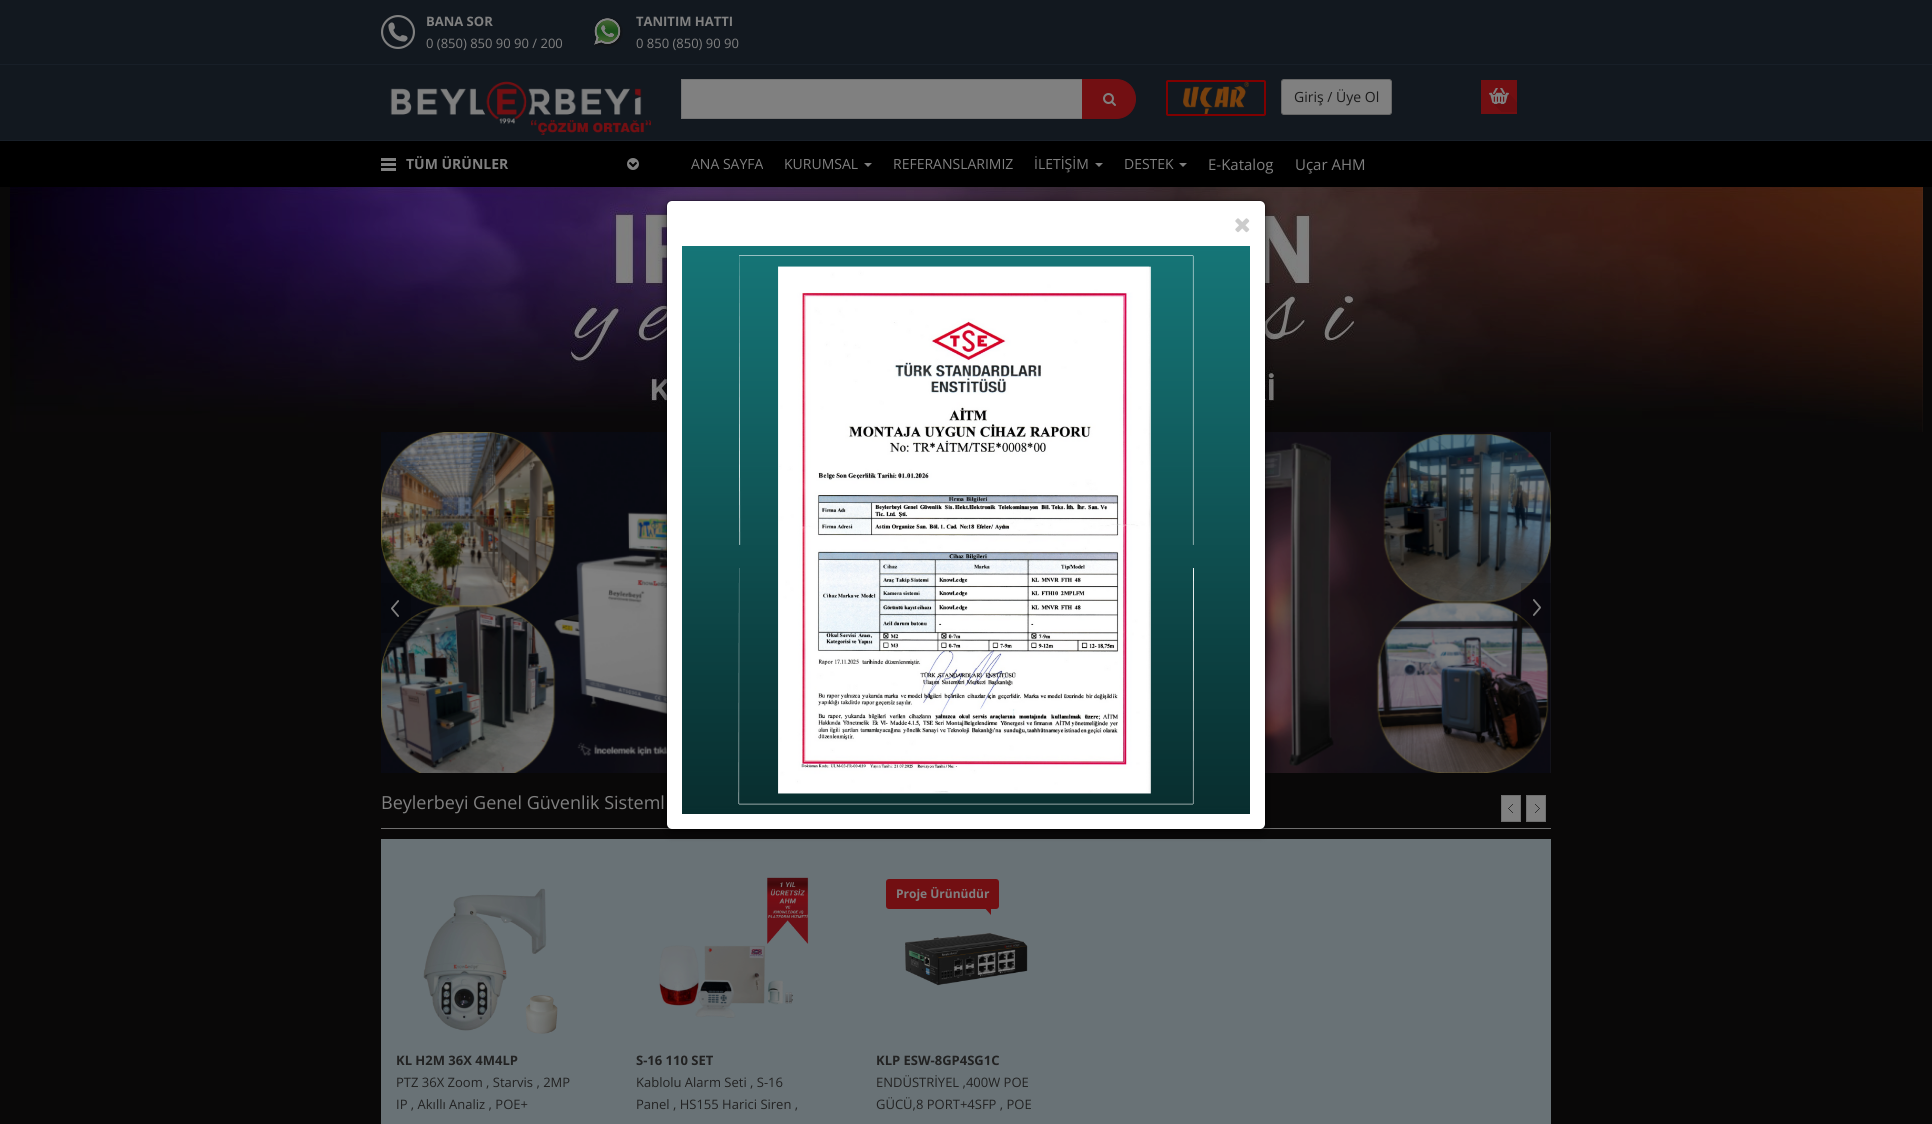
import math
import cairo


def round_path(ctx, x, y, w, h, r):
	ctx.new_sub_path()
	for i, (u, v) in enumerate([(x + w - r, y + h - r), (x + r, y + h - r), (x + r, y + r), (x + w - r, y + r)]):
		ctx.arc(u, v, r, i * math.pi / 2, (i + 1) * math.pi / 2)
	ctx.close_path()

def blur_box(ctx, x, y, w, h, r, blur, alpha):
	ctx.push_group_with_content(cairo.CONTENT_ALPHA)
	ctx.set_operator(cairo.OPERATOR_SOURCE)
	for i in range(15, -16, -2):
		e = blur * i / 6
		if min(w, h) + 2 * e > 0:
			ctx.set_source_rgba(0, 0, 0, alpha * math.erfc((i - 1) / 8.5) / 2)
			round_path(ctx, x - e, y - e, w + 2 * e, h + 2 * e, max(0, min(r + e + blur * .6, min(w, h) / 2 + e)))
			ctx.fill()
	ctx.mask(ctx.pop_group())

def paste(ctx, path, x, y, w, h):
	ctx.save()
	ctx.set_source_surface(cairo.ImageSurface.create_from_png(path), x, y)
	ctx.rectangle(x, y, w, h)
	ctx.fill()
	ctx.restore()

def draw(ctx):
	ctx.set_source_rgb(0.071, 0.094, 0.122)
	ctx.paint()
	ctx.set_source_rgb(0.094, 0.122, 0.157)
	ctx.rectangle(0, 64, 1932, 1)
	ctx.fill()
	paste(ctx, 'media/1.png', 381, 15, 34, 34)
	ctx.select_font_face('Open Sans', cairo.FONT_SLANT_NORMAL, cairo.FONT_WEIGHT_BOLD)
	ctx.set_font_size(13)
	ctx.set_source_rgb(0.502, 0.502, 0.502)
	ctx.move_to(426, 26)
	ctx.show_text('BANA SOR')
	ctx.select_font_face('Open Sans')
	ctx.move_to(426, 48)
	ctx.show_text('0 (850) 850 90 90 / 200')
	paste(ctx, 'media/2.png', 594, 17, 29, 30)
	ctx.select_font_face('Open Sans', cairo.FONT_SLANT_NORMAL, cairo.FONT_WEIGHT_BOLD)
	ctx.move_to(636, 26)
	ctx.show_text('TANITIM HATTI')
	ctx.select_font_face('Open Sans')
	ctx.move_to(636, 48)
	ctx.show_text('0 850 (850) 90 90')
	ctx.set_source_rgb(0.094, 0.122, 0.157)
	ctx.rectangle(0, 140, 1932, 1)
	ctx.fill()
	paste(ctx, 'media/4.png', 531, 120, 120, 15)
	paste(ctx, 'media/3.png', 390, 81, 252, 43)
	ctx.set_source_rgb(0.502, 0.502, 0.502)
	ctx.rectangle(681.5, 79.5, 401, 39)
	ctx.fill_preserve()
	ctx.set_source_rgb(0.451, 0.451, 0.451)
	ctx.set_line_width(1)
	ctx.stroke()
	ctx.set_source_rgb(0.447, 0.059, 0.071)
	ctx.new_path()
	ctx.move_to(1082.5, 79.5)
	ctx.line_to(1116, 79.5)
	ctx.curve_to(1127, 79.5, 1135.5, 88, 1135.5, 99)
	ctx.curve_to(1135.5, 110, 1127, 118.5, 1116, 118.5)
	ctx.line_to(1082.5, 118.5)
	ctx.close_path()
	ctx.fill_preserve()
	ctx.stroke()
	paste(ctx, 'media/5.png', 1103, 93, 13, 13)
	round_path(ctx, 1167, 81, 98, 34, 1)
	ctx.set_source_rgb(0.502, 0, 0)
	ctx.set_line_width(2)
	ctx.stroke()
	paste(ctx, 'media/6.png', 1183, 82, 66, 32)
	ctx.set_source_rgb(0.502, 0.502, 0.502)
	round_path(ctx, 1281.5, 79.5, 110, 35, 2.5)
	ctx.fill_preserve()
	ctx.set_source_rgb(0.4, 0.4, 0.4)
	ctx.set_line_width(1)
	ctx.stroke()
	ctx.set_font_size(14)
	ctx.set_source_rgb(0.102, 0.102, 0.102)
	ctx.move_to(1294, 102)
	ctx.show_text('Giriş / Üye Ol')
	ctx.set_source_rgb(0.447, 0.059, 0.071)
	ctx.rectangle(1481, 80, 36, 34)
	ctx.fill()
	paste(ctx, 'media/7.png', 1489, 88, 28, 24)
	ctx.set_source_rgb(0, 0, 0)
	ctx.rectangle(0, 141, 1932, 46)
	ctx.fill()
	ctx.set_source_rgb(0.502, 0.502, 0.502)
	ctx.rectangle(381, 158, 15, 3)
	ctx.rectangle(381, 163, 15, 3)
	ctx.rectangle(381, 168, 15, 3)
	ctx.fill()
	ctx.select_font_face('Open Sans', cairo.FONT_SLANT_NORMAL, cairo.FONT_WEIGHT_BOLD)
	ctx.move_to(406, 169)
	ctx.show_text('TÜM ÜRÜNLER')
	paste(ctx, 'media/8.png', 627, 158, 12, 12)
	ctx.select_font_face('Open Sans')
	ctx.move_to(691, 169)
	ctx.show_text('ANA SAYFA')
	ctx.move_to(784, 169)
	ctx.show_text('KURUMSAL')
	ctx.new_path()
	ctx.move_to(864, 163)
	ctx.line_to(872, 163)
	ctx.line_to(868, 167)
	ctx.close_path()
	ctx.fill()
	ctx.move_to(893, 169)
	ctx.show_text('REFERANSLARIMIZ')
	ctx.move_to(1034, 169)
	ctx.show_text('İLETİŞİM')
	ctx.new_path()
	ctx.move_to(1095, 163)
	ctx.line_to(1103, 163)
	ctx.line_to(1099, 167)
	ctx.close_path()
	ctx.fill()
	ctx.move_to(1124, 169)
	ctx.show_text('DESTEK')
	ctx.new_path()
	ctx.move_to(1179, 163)
	ctx.line_to(1187, 163)
	ctx.line_to(1183, 167)
	ctx.close_path()
	ctx.fill()
	ctx.set_font_size(15)
	ctx.move_to(1208, 170)
	ctx.show_text('E-Katalog')
	ctx.move_to(1295, 170)
	ctx.show_text('Uçar AHM')
	ctx.set_source_rgb(0.039, 0.035, 0.035)
	ctx.rectangle(0, 187, 1932, 937)
	ctx.fill()
	paste(ctx, 'media/9.png', 10, 187, 1913, 245)
	paste(ctx, 'media/12.png', 381, 432, 1170, 341)
	ctx.set_source_rgb(0.435, 0.435, 0.435)
	ctx.rectangle(381, 828, 1170, 1)
	ctx.fill()
	ctx.set_source_rgb(0.412, 0.447, 0.463)
	ctx.rectangle(381, 839, 1170, 285)
	ctx.fill()
	ctx.set_source_rgb(0, 0, 0)
	blur_box(ctx, 666, 203, 600, 630, 6, 4.5, 0.5)
	ctx.set_source_rgb(1, 1, 1)
	round_path(ctx, 667, 201, 598, 628, 5)
	ctx.fill()
	round_path(ctx, 666.5, 200.5, 599, 629, 5.5)
	ctx.set_source_rgba(0, 0, 0, 0.2)
	ctx.stroke()
	paste(ctx, 'media/10.png', 1235, 218, 15, 15)
	paste(ctx, 'media/11.png', 682, 246, 568, 568)
	paste(ctx, 'media/13.png', 381, 583, 30, 50)
	paste(ctx, 'media/14.png', 1521, 583, 30, 50)
	ctx.set_font_size(18)
	ctx.set_source_rgb(0.502, 0.502, 0.502)
	ctx.move_to(381, 809)
	ctx.show_text('Beylerbeyi Genel Güvenlik Sisteml')
	ctx.rectangle(1502, 796, 18, 25)
	ctx.fill()
	paste(ctx, 'media/15.png', 1508, 804, 5, 9)
	ctx.rectangle(1501.5, 795.5, 19, 26)
	ctx.set_source_rgb(0.435, 0.435, 0.435)
	ctx.stroke()
	ctx.set_source_rgb(0.502, 0.502, 0.502)
	ctx.rectangle(1527, 796, 18, 25)
	ctx.fill()
	paste(ctx, 'media/16.png', 1535, 804, 5, 9)
	ctx.rectangle(1526.5, 795.5, 19, 26)
	ctx.set_source_rgb(0.435, 0.435, 0.435)
	ctx.stroke()
	paste(ctx, 'media/17.png', 423, 888, 135, 146)
	ctx.select_font_face('Open Sans', cairo.FONT_SLANT_NORMAL, cairo.FONT_WEIGHT_BOLD)
	ctx.set_font_size(13)
	ctx.set_source_rgb(0.133, 0.133, 0.133)
	ctx.move_to(396, 1065)
	ctx.show_text('KL H2M 36X 4M4LP')
	ctx.select_font_face('Open Sans')
	ctx.move_to(396, 1087)
	ctx.show_text('PTZ 36X Zoom , Starvis , 2MP')
	ctx.move_to(396, 1109)
	ctx.show_text('IP , Akıllı Analiz , POE+')
	paste(ctx, 'media/18.png', 659, 877, 150, 141)
	ctx.select_font_face('Open Sans', cairo.FONT_SLANT_NORMAL, cairo.FONT_WEIGHT_BOLD)
	ctx.move_to(636, 1065)
	ctx.show_text('S-16 110 SET')
	ctx.select_font_face('Open Sans')
	ctx.move_to(636, 1087)
	ctx.show_text('Kablolu Alarm Seti , S-16')
	ctx.move_to(636, 1109)
	ctx.show_text('Panel , HS155 Harici Siren ,')
	ctx.set_source_rgb(0.447, 0.059, 0.071)
	round_path(ctx, 886, 879, 113, 30, 3)
	ctx.fill()
	ctx.select_font_face('Open Sans', cairo.FONT_SLANT_NORMAL, cairo.FONT_WEIGHT_BOLD)
	ctx.set_font_size(12)
	ctx.set_source_rgb(0.502, 0.502, 0.502)
	ctx.move_to(896, 898)
	ctx.show_text('Proje Ürünüdür')
	ctx.set_source_rgb(0.447, 0.059, 0.071)
	ctx.new_path()
	ctx.move_to(983, 906)
	ctx.line_to(991, 906)
	ctx.line_to(991, 915)
	ctx.close_path()
	ctx.fill()
	paste(ctx, 'media/19.png', 905, 932, 123, 54)
	ctx.set_font_size(13)
	ctx.set_source_rgb(0.133, 0.133, 0.133)
	ctx.move_to(876, 1065)
	ctx.show_text('KLP ESW-8GP4SG1C')
	ctx.select_font_face('Open Sans')
	ctx.move_to(876, 1087)
	ctx.show_text('ENDÜSTRİYEL ,400W POE')
	ctx.move_to(876, 1109)
	ctx.show_text('GÜCÜ,8 PORT+4SFP , POE')


surface = cairo.ImageSurface(cairo.FORMAT_RGB24, 1932, 1124)
ctx = cairo.Context(surface)
options = cairo.FontOptions()
options.set_hint_metrics(cairo.HINT_METRICS_OFF)
options.set_hint_style(cairo.HINT_STYLE_NONE)
ctx.set_font_options(options)
ctx.set_miter_limit(4)
draw(ctx)
surface.write_to_png('image.png')
